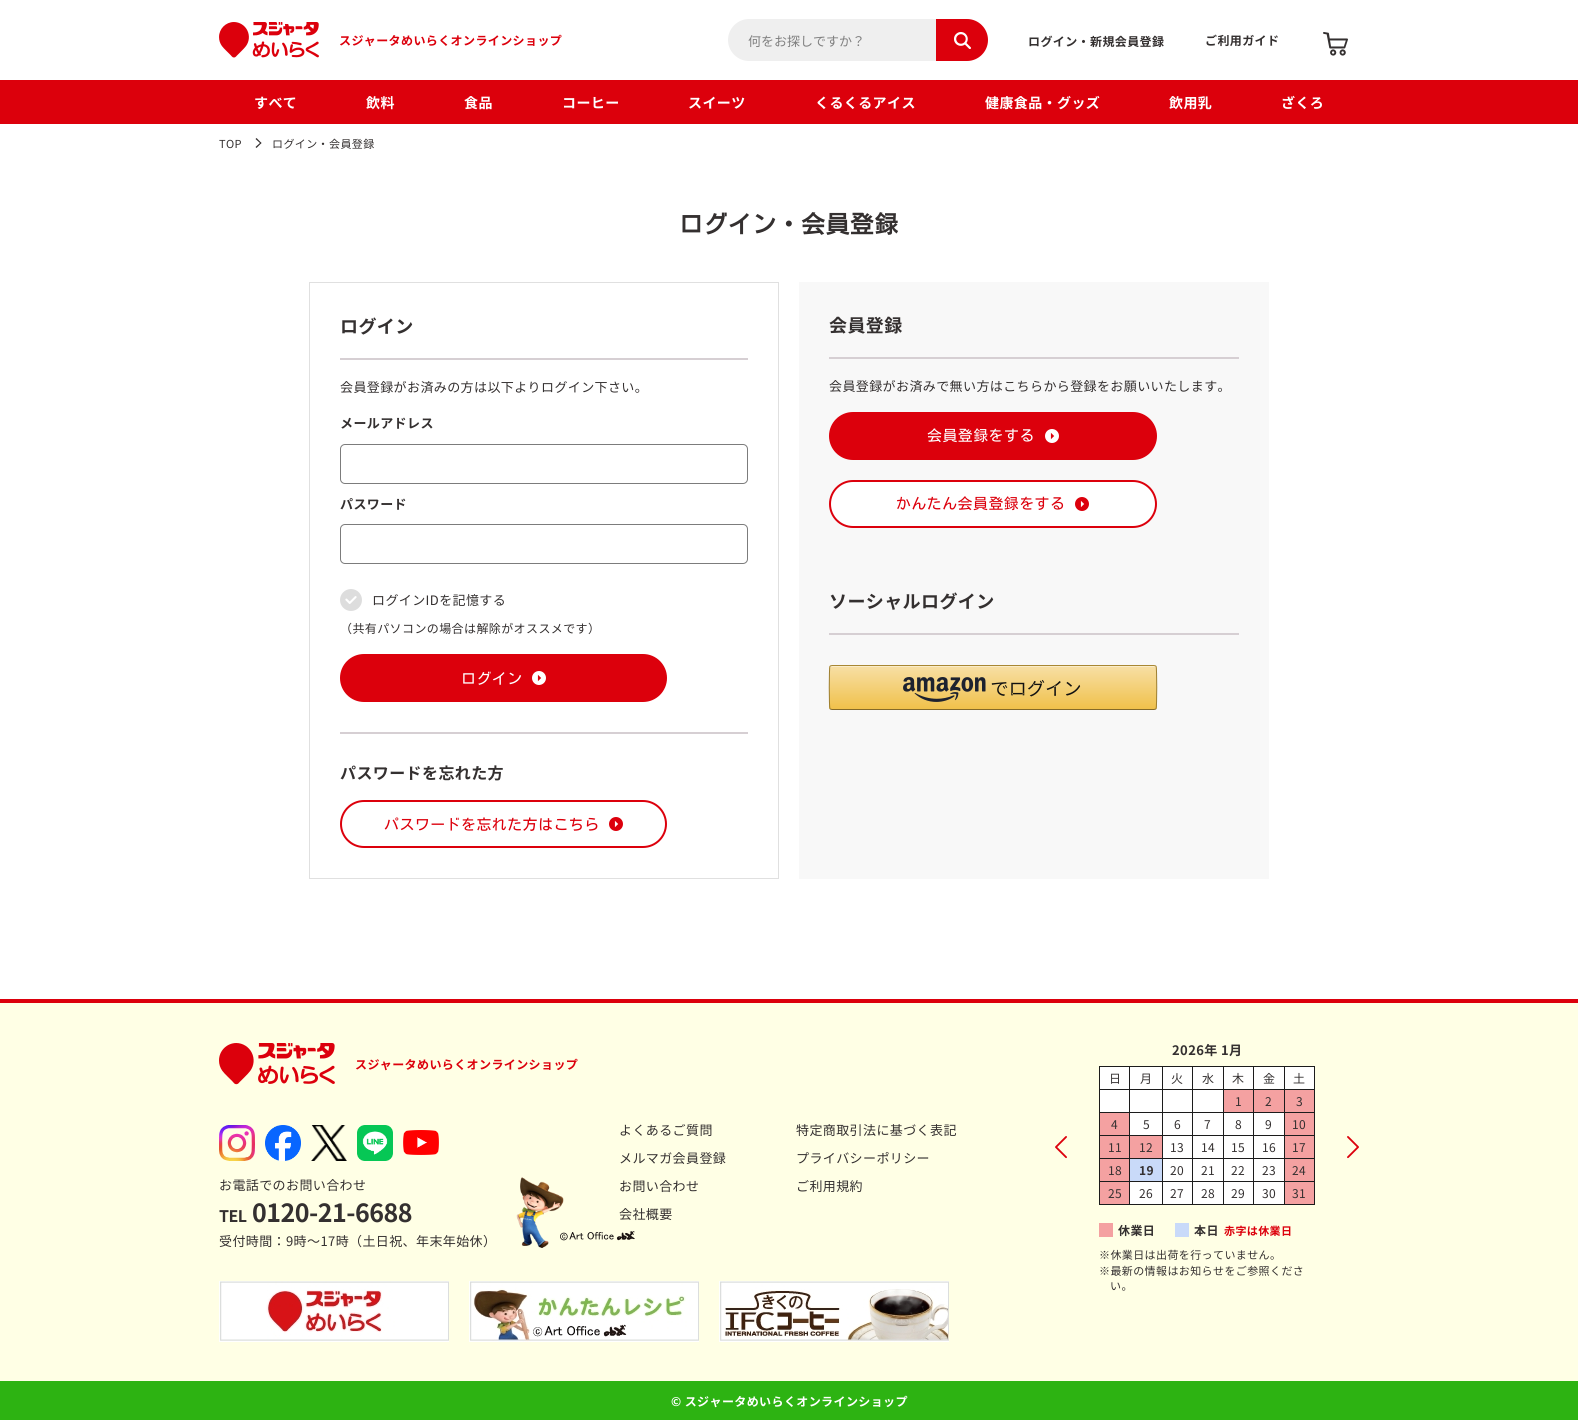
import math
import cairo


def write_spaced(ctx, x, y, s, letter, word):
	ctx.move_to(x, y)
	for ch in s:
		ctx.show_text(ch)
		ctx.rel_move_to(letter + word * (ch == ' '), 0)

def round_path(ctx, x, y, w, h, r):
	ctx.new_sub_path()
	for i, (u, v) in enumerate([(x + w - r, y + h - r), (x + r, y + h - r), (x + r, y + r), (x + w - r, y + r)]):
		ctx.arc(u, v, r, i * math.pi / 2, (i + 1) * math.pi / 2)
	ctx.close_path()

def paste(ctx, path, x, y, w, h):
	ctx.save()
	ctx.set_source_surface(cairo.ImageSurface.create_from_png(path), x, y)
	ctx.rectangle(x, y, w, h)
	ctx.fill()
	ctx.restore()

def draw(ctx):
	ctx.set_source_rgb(1, 1, 1)
	ctx.paint()
	ctx.select_font_face('Noto Sans JP', cairo.FONT_SLANT_NORMAL, cairo.FONT_WEIGHT_BOLD)
	ctx.set_font_size(12)
	ctx.set_source_rgb(0.204, 0.188, 0.188)
	write_spaced(ctx, 1205, 45, 'ご利用ガイド', 0.4, 0)
	ctx.set_source_rgb(0.937, 0.937, 0.937)
	ctx.new_path()
	ctx.move_to(749, 19)
	ctx.line_to(936, 19)
	ctx.line_to(936, 61)
	ctx.line_to(749, 61)
	ctx.curve_to(737.5, 61, 728, 51.5, 728, 40)
	ctx.curve_to(728, 28.5, 737.5, 19, 749, 19)
	ctx.close_path()
	ctx.fill()
	ctx.select_font_face('Noto Sans JP')
	ctx.set_font_size(13)
	ctx.set_source_rgb(0.502, 0.502, 0.502)
	ctx.move_to(748, 46)
	ctx.show_text('何をお探しですか？')
	ctx.set_source_rgb(0.863, 0, 0.047)
	ctx.new_path()
	ctx.move_to(936, 19)
	ctx.line_to(967, 19)
	ctx.curve_to(978.5, 19, 988, 28.5, 988, 40)
	ctx.curve_to(988, 51.5, 978.5, 61, 967, 61)
	ctx.line_to(936, 61)
	ctx.close_path()
	ctx.fill()
	paste(ctx, 'media/1.png', 954, 32, 17, 17)
	ctx.rectangle(0, 80, 1578, 44)
	ctx.fill()
	ctx.select_font_face('Noto Sans JP', cairo.FONT_SLANT_NORMAL, cairo.FONT_WEIGHT_BOLD)
	ctx.set_font_size(14)
	ctx.set_source_rgb(1, 1, 1)
	for x, y, s in [
		(254, 108, 'すべて'),
		(366, 108, '飲料'),
		(464, 108, '食品'),
		(562, 108, 'コーヒー'),
		(688, 108, 'スイーツ'),
		(815, 108, 'くるくるアイス'),
		(985, 108, '健康食品・グッズ'),
		(1169, 108, '飲用乳'),
		(1281, 108, 'ざくろ'),
	]:
		write_spaced(ctx, x, y, s, 0.4, 0)
	ctx.set_font_size(12)
	ctx.set_source_rgb(0.204, 0.188, 0.188)
	write_spaced(ctx, 1028, 46, 'ログイン・新規会員登録', 0.4, 0)
	paste(ctx, 'media/2.png', 1323, 32, 25, 24)
	paste(ctx, 'media/3.png', 219, 22, 100, 36)
	ctx.set_source_rgb(0.863, 0, 0.047)
	write_spaced(ctx, 339, 45, 'スジャータめいらくオンラインショップ', 0.4, 0)
	ctx.select_font_face('Noto Sans JP')
	ctx.set_font_size(11)
	ctx.set_source_rgb(0.204, 0.188, 0.188)
	write_spaced(ctx, 219, 148, 'TOP', 0.4, 0)
	ctx.new_path()
	ctx.move_to(256.5, 138)
	ctx.line_to(261.5, 143)
	ctx.line_to(260.5, 143.5)
	ctx.line_to(255.5, 139)
	ctx.close_path()
	ctx.fill()
	ctx.new_path()
	ctx.move_to(260.5, 142.5)
	ctx.line_to(261.5, 143)
	ctx.line_to(256.5, 148)
	ctx.line_to(255.5, 147)
	ctx.close_path()
	ctx.fill()
	write_spaced(ctx, 272, 148, 'ログイン・会員登録', 0.4, 0)
	ctx.select_font_face('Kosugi', cairo.FONT_SLANT_NORMAL, cairo.FONT_WEIGHT_BOLD)
	ctx.set_font_size(24)
	write_spaced(ctx, 679, 233, 'ログイン・会員登録', 0.4, 0)
	ctx.rectangle(309.5, 282.5, 469, 596)
	ctx.set_source_rgb(0.878, 0.878, 0.878)
	ctx.set_line_width(1)
	ctx.stroke()
	ctx.set_source_rgb(0.839, 0.812, 0.827)
	ctx.rectangle(340, 358, 408, 2)
	ctx.fill()
	ctx.select_font_face('Noto Sans JP', cairo.FONT_SLANT_NORMAL, cairo.FONT_WEIGHT_BOLD)
	ctx.set_font_size(18)
	ctx.set_source_rgb(0.204, 0.188, 0.188)
	write_spaced(ctx, 340, 333, 'ログイン', 0.4, 0)
	ctx.select_font_face('Noto Sans JP')
	ctx.set_font_size(13)
	write_spaced(ctx, 340, 392, '会員登録がお済みの方は以下よりログイン下さい。', 0.4, 0)
	ctx.select_font_face('Noto Sans JP', cairo.FONT_SLANT_NORMAL, cairo.FONT_WEIGHT_BOLD)
	write_spaced(ctx, 340, 428, 'メールアドレス', 0.4, 0)
	round_path(ctx, 340.5, 444.5, 407, 39, 4.5)
	ctx.set_source_rgb(0.486, 0.486, 0.486)
	ctx.stroke()
	ctx.set_source_rgb(0.204, 0.188, 0.188)
	write_spaced(ctx, 340, 509, 'パスワード', 0.4, 0)
	round_path(ctx, 340.5, 524.5, 407, 39, 4.5)
	ctx.set_source_rgb(0.486, 0.486, 0.486)
	ctx.stroke()
	ctx.set_source_rgb(0.867, 0.867, 0.867)
	ctx.arc(351, 600, 11, 0, 2 * math.pi)
	ctx.fill()
	ctx.select_font_face('Noto Sans JP')
	ctx.set_source_rgb(0.204, 0.188, 0.188)
	write_spaced(ctx, 372, 605, 'ログインIDを記憶する', 0.4, 0)
	paste(ctx, 'media/4.png', 345, 596, 12, 8)
	ctx.set_font_size(12)
	write_spaced(ctx, 340, 633, '（共有パソコンの場合は解除がオススメです）', 0.4, 0)
	ctx.set_source_rgb(0.863, 0, 0.047)
	round_path(ctx, 341, 655, 325, 46, 23)
	ctx.fill_preserve()
	ctx.set_line_width(2)
	ctx.stroke()
	ctx.select_font_face('Kosugi')
	ctx.set_font_size(15)
	ctx.set_source_rgb(1, 1, 1)
	write_spaced(ctx, 461, 684, 'ログイン', 0.4, 0)
	paste(ctx, 'media/5.png', 532, 671, 14, 14)
	ctx.set_source_rgb(0.839, 0.812, 0.827)
	ctx.rectangle(340, 732, 408, 2)
	ctx.fill()
	ctx.select_font_face('Noto Sans JP', cairo.FONT_SLANT_NORMAL, cairo.FONT_WEIGHT_BOLD)
	ctx.set_font_size(16)
	ctx.set_source_rgb(0.204, 0.188, 0.188)
	write_spaced(ctx, 340, 779, 'パスワードを忘れた方', 0.4, 0)
	round_path(ctx, 341, 801, 325, 46, 23)
	ctx.set_source_rgb(0.863, 0, 0.047)
	ctx.stroke()
	ctx.select_font_face('Kosugi')
	ctx.set_font_size(15)
	write_spaced(ctx, 384, 830, 'パスワードを忘れた方はこちら', 0.4, 0)
	paste(ctx, 'media/6.png', 609, 817, 14, 14)
	ctx.set_source_rgb(0.969, 0.969, 0.969)
	ctx.rectangle(799, 282, 470, 597)
	ctx.fill()
	ctx.set_source_rgb(0.839, 0.812, 0.827)
	ctx.rectangle(829, 357, 410, 2)
	ctx.fill()
	ctx.select_font_face('Noto Sans JP', cairo.FONT_SLANT_NORMAL, cairo.FONT_WEIGHT_BOLD)
	ctx.set_font_size(18)
	ctx.set_source_rgb(0.204, 0.188, 0.188)
	write_spaced(ctx, 829, 332, '会員登録', 0.4, 0)
	ctx.select_font_face('Noto Sans JP')
	ctx.set_font_size(13)
	write_spaced(ctx, 829, 391, '会員登録がお済みで無い方はこちらから登録をお願いいたします。', 0.4, 0)
	ctx.set_source_rgb(0.863, 0, 0.047)
	round_path(ctx, 830, 413, 326, 46, 23)
	ctx.fill_preserve()
	ctx.stroke()
	ctx.select_font_face('Kosugi')
	ctx.set_font_size(15)
	ctx.set_source_rgb(1, 1, 1)
	write_spaced(ctx, 927, 441, '会員登録をする', 0.4, 0)
	paste(ctx, 'media/5.png', 1045, 429, 14, 14)
	round_path(ctx, 830, 481, 326, 46, 23)
	ctx.fill_preserve()
	ctx.set_source_rgb(0.863, 0, 0.047)
	ctx.stroke()
	write_spaced(ctx, 896, 509, 'かんたん会員登録をする', 0.4, 0)
	paste(ctx, 'media/6.png', 1075, 497, 14, 14)
	ctx.set_source_rgb(0.839, 0.812, 0.827)
	ctx.rectangle(829, 633, 410, 2)
	ctx.fill()
	ctx.select_font_face('Noto Sans JP', cairo.FONT_SLANT_NORMAL, cairo.FONT_WEIGHT_BOLD)
	ctx.set_font_size(18)
	ctx.set_source_rgb(0.204, 0.188, 0.188)
	write_spaced(ctx, 829, 608, 'ソーシャルログイン', 0.4, 0)
	ctx.save()
	round_path(ctx, 829, 665, 328, 45, 3)
	ctx.clip()
	gradient = cairo.LinearGradient(993, 666, 993, 709)
	gradient.add_color_stop_rgba(0, 0.969, 0.875, 0.647, 1)
	gradient.add_color_stop_rgba(1, 0.941, 0.757, 0.294, 1)
	ctx.set_source(gradient)
	ctx.rectangle(829, 666, 328, 43)
	ctx.fill()
	ctx.restore()
	ctx.set_source_rgb(0.98, 0.925, 0.784)
	ctx.new_path()
	ctx.move_to(832, 667)
	ctx.line_to(1154, 667)
	ctx.curve_to(1155, 667, 1156, 668, 1156, 669)
	ctx.curve_to(1156, 668, 1156, 666, 1154, 666)
	ctx.line_to(831, 666)
	ctx.line_to(830, 667)
	ctx.line_to(830, 669)
	ctx.curve_to(830, 668, 831, 667, 832, 667)
	ctx.close_path()
	ctx.fill()
	ctx.new_path()
	ctx.move_to(830, 666)
	ctx.line_to(832, 665.5)
	ctx.line_to(1154, 665.5)
	ctx.line_to(1156, 666)
	ctx.set_source_rgb(0.659, 0.529, 0.204)
	ctx.set_line_width(1)
	ctx.stroke()
	ctx.new_path()
	ctx.move_to(1156, 666)
	ctx.curve_to(1157, 667.5, 1157, 707.5, 1156, 709)
	ctx.set_source_rgb(0.612, 0.494, 0.192)
	ctx.stroke()
	ctx.new_path()
	ctx.move_to(1156, 709)
	ctx.line_to(1154, 709.5)
	ctx.line_to(832, 709.5)
	ctx.line_to(830, 709)
	ctx.set_source_rgb(0.518, 0.416, 0.161)
	ctx.stroke()
	ctx.new_path()
	ctx.move_to(830, 709)
	ctx.curve_to(829, 707.5, 829, 667.5, 830, 666)
	ctx.set_source_rgb(0.612, 0.494, 0.192)
	ctx.stroke()
	paste(ctx, 'media/7.png', 903, 677, 178, 25)
	ctx.set_source_rgb(1, 1, 0.898)
	ctx.rectangle(0, 1003, 1578, 378)
	ctx.fill()
	ctx.set_source_rgb(0.863, 0, 0.047)
	ctx.rectangle(0, 999, 1578, 4)
	ctx.fill()
	paste(ctx, 'media/8.png', 219, 1043, 116, 42)
	ctx.set_font_size(12)
	write_spaced(ctx, 355, 1069, 'スジャータめいらくオンラインショップ', 0.4, 0)
	paste(ctx, 'media/9.png', 219, 1125, 36, 36)
	paste(ctx, 'media/10.png', 265, 1125, 36, 36)
	paste(ctx, 'media/11.png', 311, 1125, 36, 36)
	paste(ctx, 'media/12.png', 357, 1125, 36, 36)
	paste(ctx, 'media/13.png', 403, 1130, 36, 25)
	ctx.select_font_face('Noto Sans JP')
	ctx.set_font_size(13)
	ctx.set_source_rgb(0.204, 0.188, 0.188)
	write_spaced(ctx, 219, 1190, 'お電話でのお問い合わせ', 0.4, 0)
	ctx.select_font_face('Noto Sans JP', cairo.FONT_SLANT_NORMAL, cairo.FONT_WEIGHT_BOLD)
	ctx.set_font_size(16)
	write_spaced(ctx, 219, 1222, 'TEL', -0.5, 0)
	ctx.set_font_size(25)
	write_spaced(ctx, 252, 1222, '0120-21-6688', -0.5, 0)
	ctx.select_font_face('Noto Sans JP')
	ctx.set_font_size(13)
	write_spaced(ctx, 219, 1246, '受付時間：9時〜17時（土日祝、年末年始休）', 0.4, 0)
	paste(ctx, 'media/14.png', 516, 1177, 48, 71)
	paste(ctx, 'media/15.png', 560, 1231, 75, 10)
	for x, y, s in [
		(619, 1135, 'よくあるご質問'),
		(619, 1163, 'メルマガ会員登録'),
		(619, 1191, 'お問い合わせ'),
		(619, 1219, '会社概要'),
		(796, 1135, '特定商取引法に基づく表記'),
		(796, 1163, 'プライバシーポリシー'),
		(796, 1191, 'ご利用規約'),
	]:
		write_spaced(ctx, x, y, s, 0.4, 0)
	paste(ctx, 'media/16.png', 219, 1281, 230, 61)
	paste(ctx, 'media/17.png', 469, 1281, 230, 61)
	paste(ctx, 'media/18.png', 719, 1281, 230, 61)
	ctx.select_font_face('Noto Sans JP', cairo.FONT_SLANT_NORMAL, cairo.FONT_WEIGHT_BOLD)
	write_spaced(ctx, 1172, 1055, '2026年 1月', 0.4, 0)
	ctx.set_source_rgb(0.11, 0.11, 0.11)
	ctx.rectangle(1099, 1066, 216, 1)
	ctx.rectangle(1314, 1066, 1, 139)
	ctx.rectangle(1099, 1204, 216, 1)
	ctx.rectangle(1099, 1066, 1, 139)
	ctx.fill()
	ctx.set_source_rgb(1, 1, 1)
	ctx.rectangle(1100, 1067, 29, 22)
	ctx.fill()
	ctx.select_font_face('Noto Sans JP')
	ctx.set_font_size(12)
	ctx.set_source_rgb(0.204, 0.188, 0.188)
	write_spaced(ctx, 1109, 1083, '日', 0.4, 0)
	ctx.set_source_rgb(1, 1, 1)
	ctx.rectangle(1130, 1067, 32, 22)
	ctx.fill()
	ctx.set_source_rgb(0.204, 0.188, 0.188)
	write_spaced(ctx, 1140, 1083, '月', 0.4, 0)
	ctx.set_source_rgb(1, 1, 1)
	ctx.rectangle(1163, 1067, 29, 22)
	ctx.fill()
	ctx.set_source_rgb(0.204, 0.188, 0.188)
	write_spaced(ctx, 1171, 1083, '火', 0.4, 0)
	ctx.set_source_rgb(1, 1, 1)
	ctx.rectangle(1193, 1067, 30, 22)
	ctx.fill()
	ctx.set_source_rgb(0.204, 0.188, 0.188)
	write_spaced(ctx, 1202, 1083, '水', 0.4, 0)
	ctx.set_source_rgb(1, 1, 1)
	ctx.rectangle(1224, 1067, 29, 22)
	ctx.fill()
	ctx.set_source_rgb(0.204, 0.188, 0.188)
	write_spaced(ctx, 1232, 1083, '木', 0.4, 0)
	ctx.set_source_rgb(1, 1, 1)
	ctx.rectangle(1254, 1067, 30, 22)
	ctx.fill()
	ctx.set_source_rgb(0.204, 0.188, 0.188)
	write_spaced(ctx, 1263, 1083, '金', 0.4, 0)
	ctx.set_source_rgb(1, 1, 1)
	ctx.rectangle(1285, 1067, 29, 22)
	ctx.fill()
	ctx.set_source_rgb(0.204, 0.188, 0.188)
	write_spaced(ctx, 1293, 1083, '土', 0.4, 0)
	ctx.set_source_rgb(0.11, 0.11, 0.11)
	ctx.rectangle(1099, 1089, 216, 1)
	ctx.fill()
	ctx.set_source_rgb(1, 1, 1)
	ctx.rectangle(1100, 1090, 29, 22)
	ctx.rectangle(1130, 1090, 32, 22)
	ctx.rectangle(1163, 1090, 29, 22)
	ctx.rectangle(1193, 1090, 30, 22)
	ctx.fill()
	ctx.set_source_rgb(0.957, 0.631, 0.631)
	ctx.rectangle(1224, 1090, 29, 22)
	ctx.fill()
	ctx.set_source_rgb(0.204, 0.188, 0.188)
	write_spaced(ctx, 1235, 1106, '1', 0.4, 0)
	ctx.set_source_rgb(0.957, 0.631, 0.631)
	ctx.rectangle(1254, 1090, 30, 22)
	ctx.fill()
	ctx.set_source_rgb(0.204, 0.188, 0.188)
	write_spaced(ctx, 1265, 1106, '2', 0.4, 0)
	ctx.set_source_rgb(0.957, 0.631, 0.631)
	ctx.rectangle(1285, 1090, 29, 22)
	ctx.fill()
	ctx.set_source_rgb(0.204, 0.188, 0.188)
	write_spaced(ctx, 1296, 1106, '3', 0.4, 0)
	ctx.set_source_rgb(0.11, 0.11, 0.11)
	ctx.rectangle(1099, 1112, 216, 1)
	ctx.fill()
	ctx.set_source_rgb(0.957, 0.631, 0.631)
	ctx.rectangle(1100, 1113, 29, 22)
	ctx.fill()
	ctx.set_source_rgb(0.204, 0.188, 0.188)
	write_spaced(ctx, 1111, 1129, '4', 0.4, 0)
	ctx.set_source_rgb(1, 1, 1)
	ctx.rectangle(1130, 1113, 32, 22)
	ctx.fill()
	ctx.set_source_rgb(0.204, 0.188, 0.188)
	write_spaced(ctx, 1143, 1129, '5', 0.4, 0)
	ctx.set_source_rgb(1, 1, 1)
	ctx.rectangle(1163, 1113, 29, 22)
	ctx.fill()
	ctx.set_source_rgb(0.204, 0.188, 0.188)
	write_spaced(ctx, 1174, 1129, '6', 0.4, 0)
	ctx.set_source_rgb(1, 1, 1)
	ctx.rectangle(1193, 1113, 30, 22)
	ctx.fill()
	ctx.set_source_rgb(0.204, 0.188, 0.188)
	write_spaced(ctx, 1204, 1129, '7', 0.4, 0)
	ctx.set_source_rgb(1, 1, 1)
	ctx.rectangle(1224, 1113, 29, 22)
	ctx.fill()
	ctx.set_source_rgb(0.204, 0.188, 0.188)
	write_spaced(ctx, 1235, 1129, '8', 0.4, 0)
	ctx.set_source_rgb(1, 1, 1)
	ctx.rectangle(1254, 1113, 30, 22)
	ctx.fill()
	ctx.set_source_rgb(0.204, 0.188, 0.188)
	write_spaced(ctx, 1265, 1129, '9', 0.4, 0)
	ctx.set_source_rgb(0.957, 0.631, 0.631)
	ctx.rectangle(1285, 1113, 29, 22)
	ctx.fill()
	ctx.set_source_rgb(0.204, 0.188, 0.188)
	write_spaced(ctx, 1292, 1129, '10', 0.4, 0)
	ctx.set_source_rgb(0.11, 0.11, 0.11)
	ctx.rectangle(1099, 1135, 216, 1)
	ctx.fill()
	ctx.set_source_rgb(0.957, 0.631, 0.631)
	ctx.rectangle(1100, 1136, 29, 22)
	ctx.fill()
	ctx.set_source_rgb(0.204, 0.188, 0.188)
	write_spaced(ctx, 1108, 1152, '11', 0.4, 0)
	ctx.set_source_rgb(0.957, 0.631, 0.631)
	ctx.rectangle(1130, 1136, 32, 22)
	ctx.fill()
	ctx.set_source_rgb(0.204, 0.188, 0.188)
	write_spaced(ctx, 1139, 1152, '12', 0.4, 0)
	ctx.set_source_rgb(1, 1, 1)
	ctx.rectangle(1163, 1136, 29, 22)
	ctx.fill()
	ctx.set_source_rgb(0.204, 0.188, 0.188)
	write_spaced(ctx, 1170, 1152, '13', 0.4, 0)
	ctx.set_source_rgb(1, 1, 1)
	ctx.rectangle(1193, 1136, 30, 22)
	ctx.fill()
	ctx.set_source_rgb(0.204, 0.188, 0.188)
	write_spaced(ctx, 1201, 1152, '14', 0.4, 0)
	ctx.set_source_rgb(1, 1, 1)
	ctx.rectangle(1224, 1136, 29, 22)
	ctx.fill()
	ctx.set_source_rgb(0.204, 0.188, 0.188)
	write_spaced(ctx, 1231, 1152, '15', 0.4, 0)
	ctx.set_source_rgb(1, 1, 1)
	ctx.rectangle(1254, 1136, 30, 22)
	ctx.fill()
	ctx.set_source_rgb(0.204, 0.188, 0.188)
	write_spaced(ctx, 1262, 1152, '16', 0.4, 0)
	ctx.set_source_rgb(0.957, 0.631, 0.631)
	ctx.rectangle(1285, 1136, 29, 22)
	ctx.fill()
	ctx.set_source_rgb(0.204, 0.188, 0.188)
	write_spaced(ctx, 1292, 1152, '17', 0.4, 0)
	ctx.set_source_rgb(0.11, 0.11, 0.11)
	ctx.rectangle(1099, 1158, 216, 1)
	ctx.fill()
	ctx.set_source_rgb(0.957, 0.631, 0.631)
	ctx.rectangle(1100, 1159, 29, 22)
	ctx.fill()
	ctx.set_source_rgb(0.204, 0.188, 0.188)
	write_spaced(ctx, 1108, 1175, '18', 0.4, 0)
	ctx.set_source_rgb(0.788, 0.855, 0.973)
	ctx.rectangle(1130, 1159, 32, 22)
	ctx.fill()
	ctx.select_font_face('Noto Sans JP', cairo.FONT_SLANT_NORMAL, cairo.FONT_WEIGHT_BOLD)
	ctx.set_source_rgb(0.204, 0.188, 0.188)
	write_spaced(ctx, 1139, 1175, '19', 0.4, 0)
	ctx.set_source_rgb(1, 1, 1)
	ctx.rectangle(1163, 1159, 29, 22)
	ctx.fill()
	ctx.select_font_face('Noto Sans JP')
	ctx.set_source_rgb(0.204, 0.188, 0.188)
	write_spaced(ctx, 1170, 1175, '20', 0.4, 0)
	ctx.set_source_rgb(1, 1, 1)
	ctx.rectangle(1193, 1159, 30, 22)
	ctx.fill()
	ctx.set_source_rgb(0.204, 0.188, 0.188)
	write_spaced(ctx, 1201, 1175, '21', 0.4, 0)
	ctx.set_source_rgb(1, 1, 1)
	ctx.rectangle(1224, 1159, 29, 22)
	ctx.fill()
	ctx.set_source_rgb(0.204, 0.188, 0.188)
	write_spaced(ctx, 1231, 1175, '22', 0.4, 0)
	ctx.set_source_rgb(1, 1, 1)
	ctx.rectangle(1254, 1159, 30, 22)
	ctx.fill()
	ctx.set_source_rgb(0.204, 0.188, 0.188)
	write_spaced(ctx, 1262, 1175, '23', 0.4, 0)
	ctx.set_source_rgb(0.957, 0.631, 0.631)
	ctx.rectangle(1285, 1159, 29, 22)
	ctx.fill()
	ctx.set_source_rgb(0.204, 0.188, 0.188)
	write_spaced(ctx, 1292, 1175, '24', 0.4, 0)
	ctx.set_source_rgb(0.11, 0.11, 0.11)
	ctx.rectangle(1099, 1181, 216, 1)
	ctx.fill()
	ctx.set_source_rgb(0.957, 0.631, 0.631)
	ctx.rectangle(1100, 1182, 29, 22)
	ctx.fill()
	ctx.set_source_rgb(0.204, 0.188, 0.188)
	write_spaced(ctx, 1108, 1198, '25', 0.4, 0)
	ctx.set_source_rgb(1, 1, 1)
	ctx.rectangle(1130, 1182, 32, 22)
	ctx.fill()
	ctx.set_source_rgb(0.11, 0.11, 0.11)
	ctx.rectangle(1129, 1066, 1, 139)
	ctx.fill()
	ctx.set_source_rgb(0.204, 0.188, 0.188)
	write_spaced(ctx, 1139, 1198, '26', 0.4, 0)
	ctx.set_source_rgb(1, 1, 1)
	ctx.rectangle(1163, 1182, 29, 22)
	ctx.fill()
	ctx.set_source_rgb(0.11, 0.11, 0.11)
	ctx.rectangle(1162, 1066, 1, 139)
	ctx.fill()
	ctx.set_source_rgb(0.204, 0.188, 0.188)
	write_spaced(ctx, 1170, 1198, '27', 0.4, 0)
	ctx.set_source_rgb(1, 1, 1)
	ctx.rectangle(1193, 1182, 30, 22)
	ctx.fill()
	ctx.set_source_rgb(0.11, 0.11, 0.11)
	ctx.rectangle(1192, 1066, 1, 139)
	ctx.fill()
	ctx.set_source_rgb(0.204, 0.188, 0.188)
	write_spaced(ctx, 1201, 1198, '28', 0.4, 0)
	ctx.set_source_rgb(1, 1, 1)
	ctx.rectangle(1224, 1182, 29, 22)
	ctx.fill()
	ctx.set_source_rgb(0.11, 0.11, 0.11)
	ctx.rectangle(1223, 1066, 1, 139)
	ctx.fill()
	ctx.set_source_rgb(0.204, 0.188, 0.188)
	write_spaced(ctx, 1231, 1198, '29', 0.4, 0)
	ctx.set_source_rgb(1, 1, 1)
	ctx.rectangle(1254, 1182, 30, 22)
	ctx.fill()
	ctx.set_source_rgb(0.11, 0.11, 0.11)
	ctx.rectangle(1253, 1066, 1, 139)
	ctx.fill()
	ctx.set_source_rgb(0.204, 0.188, 0.188)
	write_spaced(ctx, 1262, 1198, '30', 0.4, 0)
	ctx.set_source_rgb(0.957, 0.631, 0.631)
	ctx.rectangle(1285, 1182, 29, 22)
	ctx.fill()
	ctx.set_source_rgb(0.11, 0.11, 0.11)
	ctx.rectangle(1284, 1066, 1, 139)
	ctx.fill()
	ctx.set_source_rgb(0.204, 0.188, 0.188)
	write_spaced(ctx, 1292, 1198, '31', 0.4, 0)
	paste(ctx, 'media/19.png', 1055, 1136, 12, 23)
	paste(ctx, 'media/20.png', 1347, 1136, 12, 23)
	ctx.set_source_rgb(0.957, 0.631, 0.631)
	ctx.rectangle(1099, 1223, 14, 14)
	ctx.fill()
	ctx.select_font_face('Noto Sans JP', cairo.FONT_SLANT_NORMAL, cairo.FONT_WEIGHT_BOLD)
	ctx.set_source_rgb(0.204, 0.188, 0.188)
	write_spaced(ctx, 1118, 1235, '休業日', 0.4, 0)
	ctx.set_source_rgb(0.788, 0.855, 0.973)
	ctx.rectangle(1175, 1223, 14, 14)
	ctx.fill()
	ctx.set_source_rgb(0.204, 0.188, 0.188)
	write_spaced(ctx, 1194, 1235, '本日', 0.4, 0)
	ctx.set_font_size(11)
	ctx.set_source_rgb(0.863, 0, 0.047)
	write_spaced(ctx, 1224, 1235, '赤字は休業日', 0.4, 0)
	ctx.select_font_face('Noto Sans JP')
	ctx.set_source_rgb(0.204, 0.188, 0.188)
	for x, y, s in [
		(1099, 1259, '※休業日は出荷を行っていません。'),
		(1099, 1275, '※最新の情報はお知らせをご参照くださ'),
		(1110, 1290, 'い。'),
	]:
		write_spaced(ctx, x, y, s, 0.4, 0)
	ctx.set_source_rgb(0.176, 0.702, 0.071)
	ctx.rectangle(0, 1381, 1578, 39)
	ctx.fill()
	ctx.select_font_face('Noto Sans JP', cairo.FONT_SLANT_NORMAL, cairo.FONT_WEIGHT_BOLD)
	ctx.set_font_size(12)
	ctx.set_source_rgb(1, 1, 1)
	write_spaced(ctx, 671, 1406, '© スジャータめいらくオンラインショップ', 0.4, 0)


surface = cairo.ImageSurface(cairo.FORMAT_RGB24, 1578, 1420)
ctx = cairo.Context(surface)
options = cairo.FontOptions()
options.set_hint_metrics(cairo.HINT_METRICS_OFF)
options.set_hint_style(cairo.HINT_STYLE_NONE)
ctx.set_font_options(options)
ctx.set_miter_limit(4)
draw(ctx)
surface.write_to_png('image.png')
